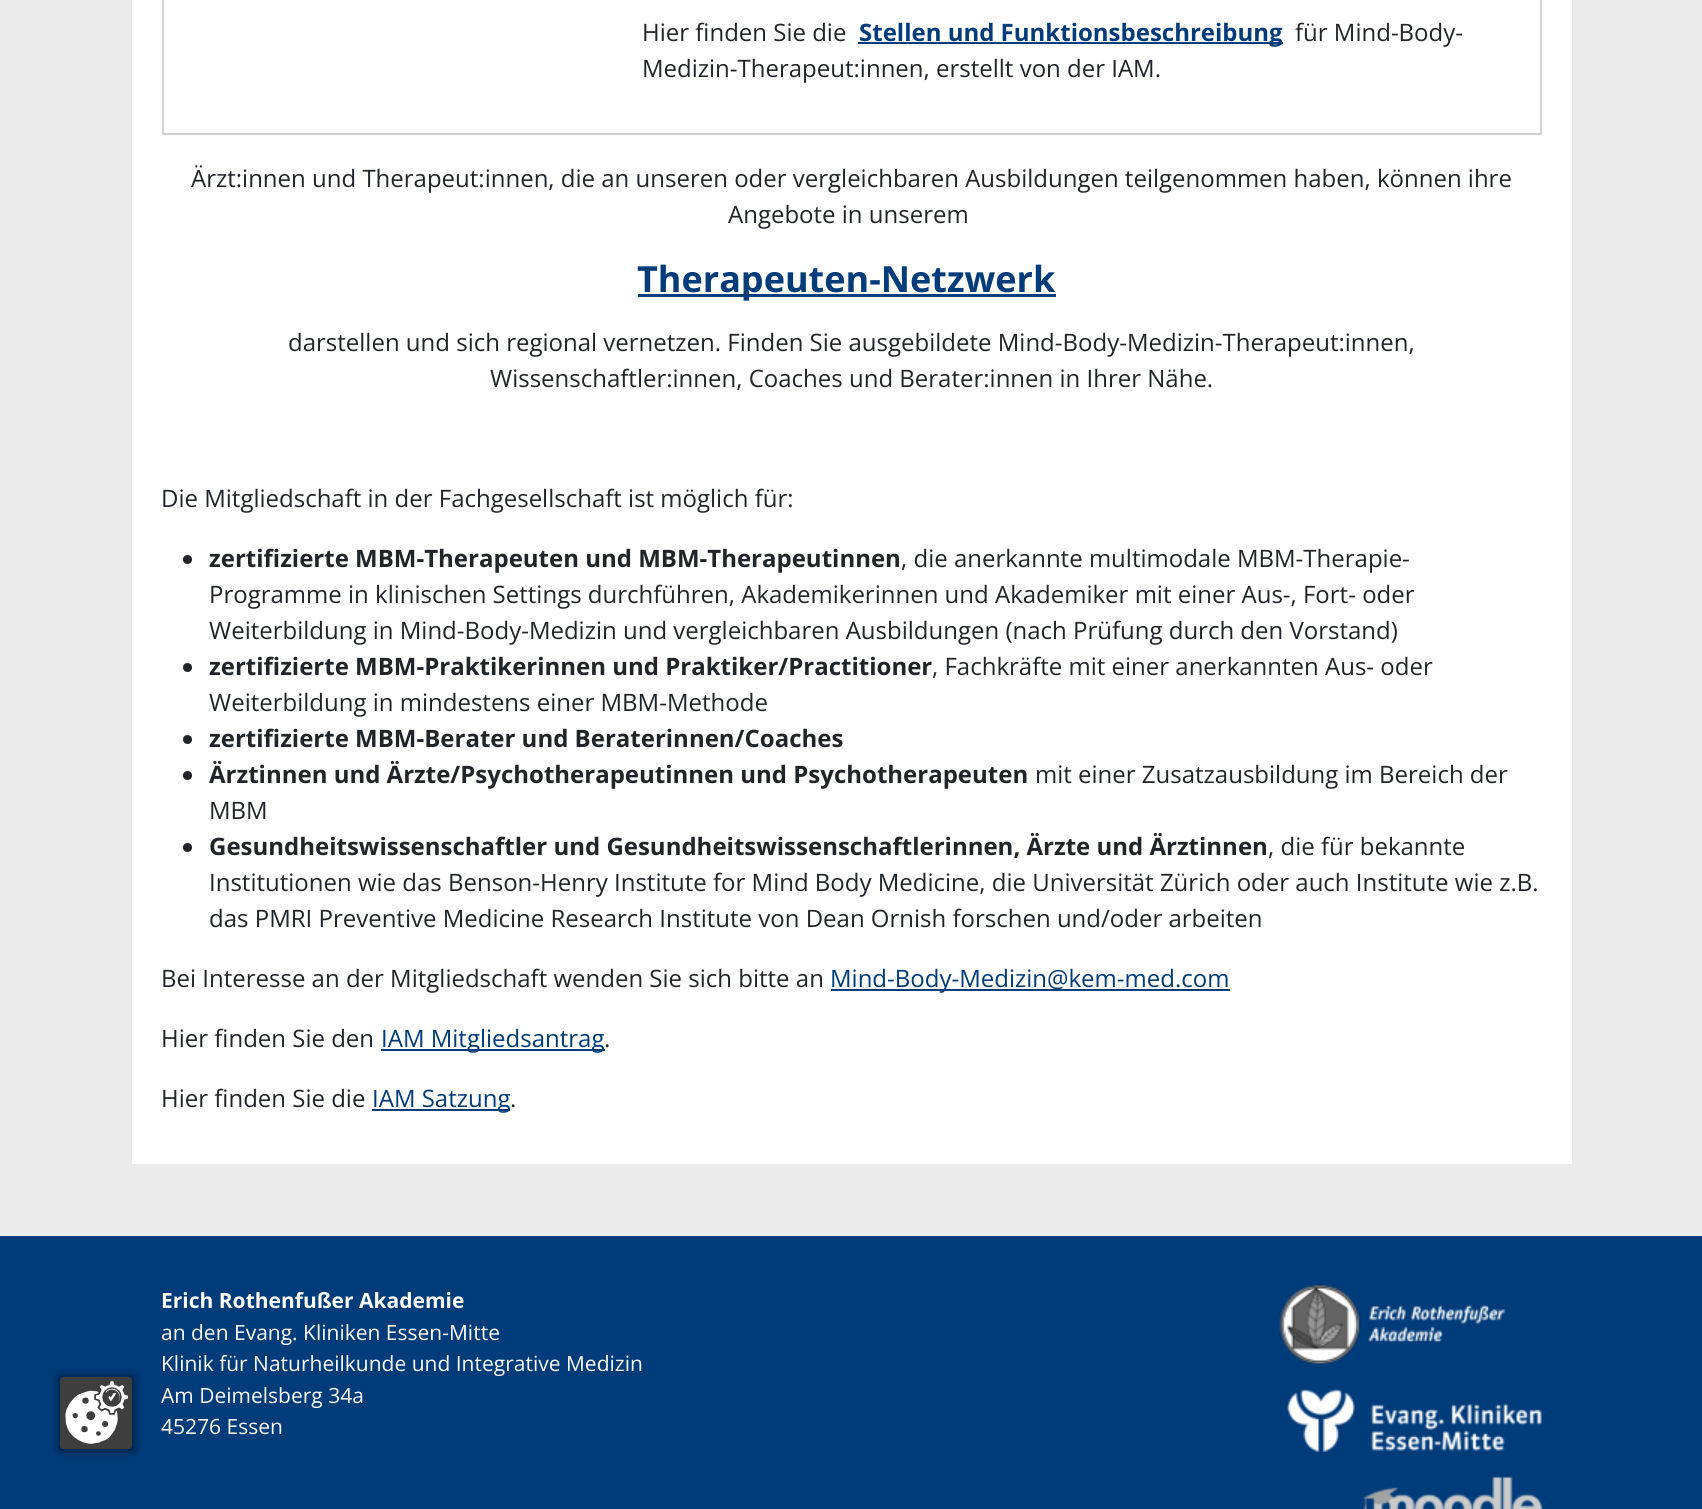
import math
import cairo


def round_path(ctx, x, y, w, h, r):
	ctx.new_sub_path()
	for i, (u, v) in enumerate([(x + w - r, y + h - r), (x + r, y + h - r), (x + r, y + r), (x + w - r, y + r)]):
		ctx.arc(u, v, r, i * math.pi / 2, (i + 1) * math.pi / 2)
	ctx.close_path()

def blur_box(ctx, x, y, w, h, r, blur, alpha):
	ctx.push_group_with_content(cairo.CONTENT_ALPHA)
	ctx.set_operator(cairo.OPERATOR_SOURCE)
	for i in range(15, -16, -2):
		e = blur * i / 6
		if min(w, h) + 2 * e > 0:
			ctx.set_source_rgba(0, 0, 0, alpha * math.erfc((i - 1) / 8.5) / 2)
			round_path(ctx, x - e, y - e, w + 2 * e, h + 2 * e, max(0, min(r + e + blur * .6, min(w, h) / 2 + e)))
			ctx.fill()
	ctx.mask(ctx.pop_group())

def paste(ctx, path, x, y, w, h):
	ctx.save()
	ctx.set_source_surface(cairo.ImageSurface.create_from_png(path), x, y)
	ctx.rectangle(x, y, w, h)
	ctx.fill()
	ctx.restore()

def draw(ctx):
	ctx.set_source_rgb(0.918, 0.918, 0.918)
	ctx.paint()
	ctx.set_source_rgb(1, 1, 1)
	ctx.rectangle(132, 0, 1440, 1164)
	ctx.fill()
	ctx.rectangle(163, -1, 1378, 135)
	ctx.set_source_rgb(0.824, 0.824, 0.824)
	ctx.stroke()
	ctx.select_font_face('Open Sans')
	ctx.set_font_size(24)
	ctx.set_source_rgb(0.129, 0.145, 0.161)
	ctx.move_to(642, 41)
	ctx.show_text('Hier finden Sie die')
	ctx.set_source_rgb(0, 0.231, 0.478)
	ctx.rectangle(858, 42, 425, 2)
	ctx.fill()
	ctx.select_font_face('Open Sans', cairo.FONT_SLANT_NORMAL, cairo.FONT_WEIGHT_BOLD)
	ctx.move_to(859, 41)
	ctx.show_text('Stellen und Funktionsbeschreibung')
	ctx.select_font_face('Open Sans')
	ctx.set_source_rgb(0.129, 0.145, 0.161)
	for x, y, s in [
		(1295, 41, 'für Mind-Body-'),
		(642, 77, 'Medizin-Therapeut:innen, erstellt von der IAM.'),
		(191, 187, 'Ärzt:innen und Therapeut:innen, die an unseren oder vergleichbaren Ausbildungen teilgenommen haben, können ihre'),
		(728, 223, 'Angebote in unserem'),
	]:
		ctx.move_to(x, y)
		ctx.show_text(s)
	ctx.set_source_rgb(0, 0.231, 0.478)
	ctx.rectangle(638, 294, 418, 3)
	ctx.fill()
	ctx.select_font_face('Open Sans', cairo.FONT_SLANT_NORMAL, cairo.FONT_WEIGHT_BOLD)
	ctx.set_font_size(36)
	ctx.move_to(637, 292)
	ctx.show_text('Therapeuten-Netzwerk')
	ctx.select_font_face('Open Sans')
	ctx.set_font_size(24)
	ctx.set_source_rgb(0.129, 0.145, 0.161)
	for x, y, s in [
		(288, 351, 'darstellen und sich regional vernetzen. Finden Sie ausgebildete Mind-Body-Medizin-Therapeut:innen,'),
		(490, 387, 'Wissenschaftler:innen, Coaches und Berater:innen in Ihrer Nähe.'),
		(161, 507, 'Die Mitgliedschaft in der Fachgesellschaft ist möglich für:'),
	]:
		ctx.move_to(x, y)
		ctx.show_text(s)
	ctx.new_path()
	ctx.arc(187.5, 559.5, 4.5, 0, 2 * math.pi)
	ctx.fill()
	ctx.select_font_face('Open Sans', cairo.FONT_SLANT_NORMAL, cairo.FONT_WEIGHT_BOLD)
	ctx.move_to(209, 567)
	ctx.show_text('zertifizierte MBM-Therapeuten und MBM-Therapeutinnen')
	ctx.select_font_face('Open Sans')
	for x, y, s in [
		(901, 567, ', die anerkannte multimodale MBM-Therapie-'),
		(209, 603, 'Programme in klinischen Settings durchführen, Akademikerinnen und Akademiker mit einer Aus-, Fort- oder'),
		(209, 639, 'Weiterbildung in Mind-Body-Medizin und vergleichbaren Ausbildungen (nach Prüfung durch den Vorstand)'),
	]:
		ctx.move_to(x, y)
		ctx.show_text(s)
	ctx.new_path()
	ctx.arc(187.5, 667.5, 4.5, 0, 2 * math.pi)
	ctx.fill()
	ctx.select_font_face('Open Sans', cairo.FONT_SLANT_NORMAL, cairo.FONT_WEIGHT_BOLD)
	ctx.move_to(209, 675)
	ctx.show_text('zertifizierte MBM-Praktikerinnen und Praktiker/Practitioner')
	ctx.select_font_face('Open Sans')
	ctx.move_to(932, 675)
	ctx.show_text(', Fachkräfte mit einer anerkannten Aus- oder')
	ctx.move_to(209, 711)
	ctx.show_text('Weiterbildung in mindestens einer MBM-Methode')
	ctx.new_path()
	ctx.arc(187.5, 739.5, 4.5, 0, 2 * math.pi)
	ctx.fill()
	ctx.select_font_face('Open Sans', cairo.FONT_SLANT_NORMAL, cairo.FONT_WEIGHT_BOLD)
	ctx.move_to(209, 747)
	ctx.show_text('zertifizierte MBM-Berater und Beraterinnen/Coaches')
	ctx.new_path()
	ctx.arc(187.5, 775.5, 4.5, 0, 2 * math.pi)
	ctx.fill()
	ctx.move_to(209, 783)
	ctx.show_text('Ärztinnen und Ärzte/Psychotherapeutinnen und Psychotherapeuten')
	ctx.select_font_face('Open Sans')
	ctx.move_to(1035, 783)
	ctx.show_text('mit einer Zusatzausbildung im Bereich der')
	ctx.move_to(209, 819)
	ctx.show_text('MBM')
	ctx.new_path()
	ctx.arc(187.5, 847.5, 4.5, 0, 2 * math.pi)
	ctx.fill()
	ctx.select_font_face('Open Sans', cairo.FONT_SLANT_NORMAL, cairo.FONT_WEIGHT_BOLD)
	ctx.move_to(209, 855)
	ctx.show_text('Gesundheitswissenschaftler und Gesundheitswissenschaftlerinnen, Ärzte und Ärztinnen')
	ctx.select_font_face('Open Sans')
	for x, y, s in [
		(1268, 855, ', die für bekannte'),
		(209, 891, 'Institutionen wie das Benson-Henry Institute for Mind Body Medicine, die Universität Zürich oder auch Institute wie z.B.'),
		(209, 927, 'das PMRI Preventive Medicine Research Institute von Dean Ornish forschen und/oder arbeiten'),
		(161, 987, 'Bei Interesse an der Mitgliedschaft wenden Sie sich bitte an'),
	]:
		ctx.move_to(x, y)
		ctx.show_text(s)
	ctx.set_source_rgb(0, 0.231, 0.478)
	ctx.rectangle(831, 989, 399, 2)
	ctx.fill()
	ctx.move_to(830, 987)
	ctx.show_text('Mind-Body-Medizin@kem-med.com')
	ctx.set_source_rgb(0.129, 0.145, 0.161)
	ctx.move_to(161, 1047)
	ctx.show_text('Hier finden Sie den')
	ctx.set_source_rgb(0, 0.231, 0.478)
	ctx.rectangle(381, 1049, 224, 2)
	ctx.fill()
	ctx.move_to(381, 1047)
	ctx.show_text('IAM Mitgliedsantrag')
	ctx.set_source_rgb(0.129, 0.145, 0.161)
	ctx.move_to(604, 1047)
	ctx.show_text('.')
	ctx.move_to(161, 1107)
	ctx.show_text('Hier finden Sie die')
	ctx.set_source_rgb(0, 0.231, 0.478)
	ctx.rectangle(372, 1109, 138, 2)
	ctx.fill()
	ctx.move_to(372, 1107)
	ctx.show_text('IAM Satzung')
	ctx.set_source_rgb(0.129, 0.145, 0.161)
	ctx.move_to(510, 1107)
	ctx.show_text('.')
	ctx.set_source_rgb(0, 0.231, 0.478)
	ctx.rectangle(0, 1236, 1702, 273)
	ctx.fill()
	ctx.set_source_rgb(0, 0, 0)
	blur_box(ctx, 59, 1376, 75, 75, 0, 4.5, 0.5)
	paste(ctx, 'media/1.png', 60, 1377, 72, 72)
	ctx.select_font_face('Open Sans', cairo.FONT_SLANT_NORMAL, cairo.FONT_WEIGHT_BOLD)
	ctx.set_font_size(21)
	ctx.set_source_rgb(1, 1, 1)
	ctx.move_to(161, 1308)
	ctx.show_text('Erich Rothenfußer Akademie')
	ctx.select_font_face('Open Sans')
	for x, y, s in [
		(161, 1340, 'an den Evang. Kliniken Essen-Mitte'),
		(161, 1371, 'Klinik für Naturheilkunde und Integrative Medizin'),
		(161, 1403, 'Am Deimelsberg 34a'),
		(161, 1434, '45276 Essen'),
	]:
		ctx.move_to(x, y)
		ctx.show_text(s)
	paste(ctx, 'media/2.png', 1279, 1284, 227, 81)
	paste(ctx, 'media/3.png', 1286, 1389, 256, 63)
	paste(ctx, 'media/4.png', 1363, 1476, 179, 33)


surface = cairo.ImageSurface(cairo.FORMAT_RGB24, 1702, 1509)
ctx = cairo.Context(surface)
options = cairo.FontOptions()
options.set_hint_metrics(cairo.HINT_METRICS_OFF)
options.set_hint_style(cairo.HINT_STYLE_NONE)
ctx.set_font_options(options)
ctx.set_miter_limit(4)
draw(ctx)
surface.write_to_png('image.png')
